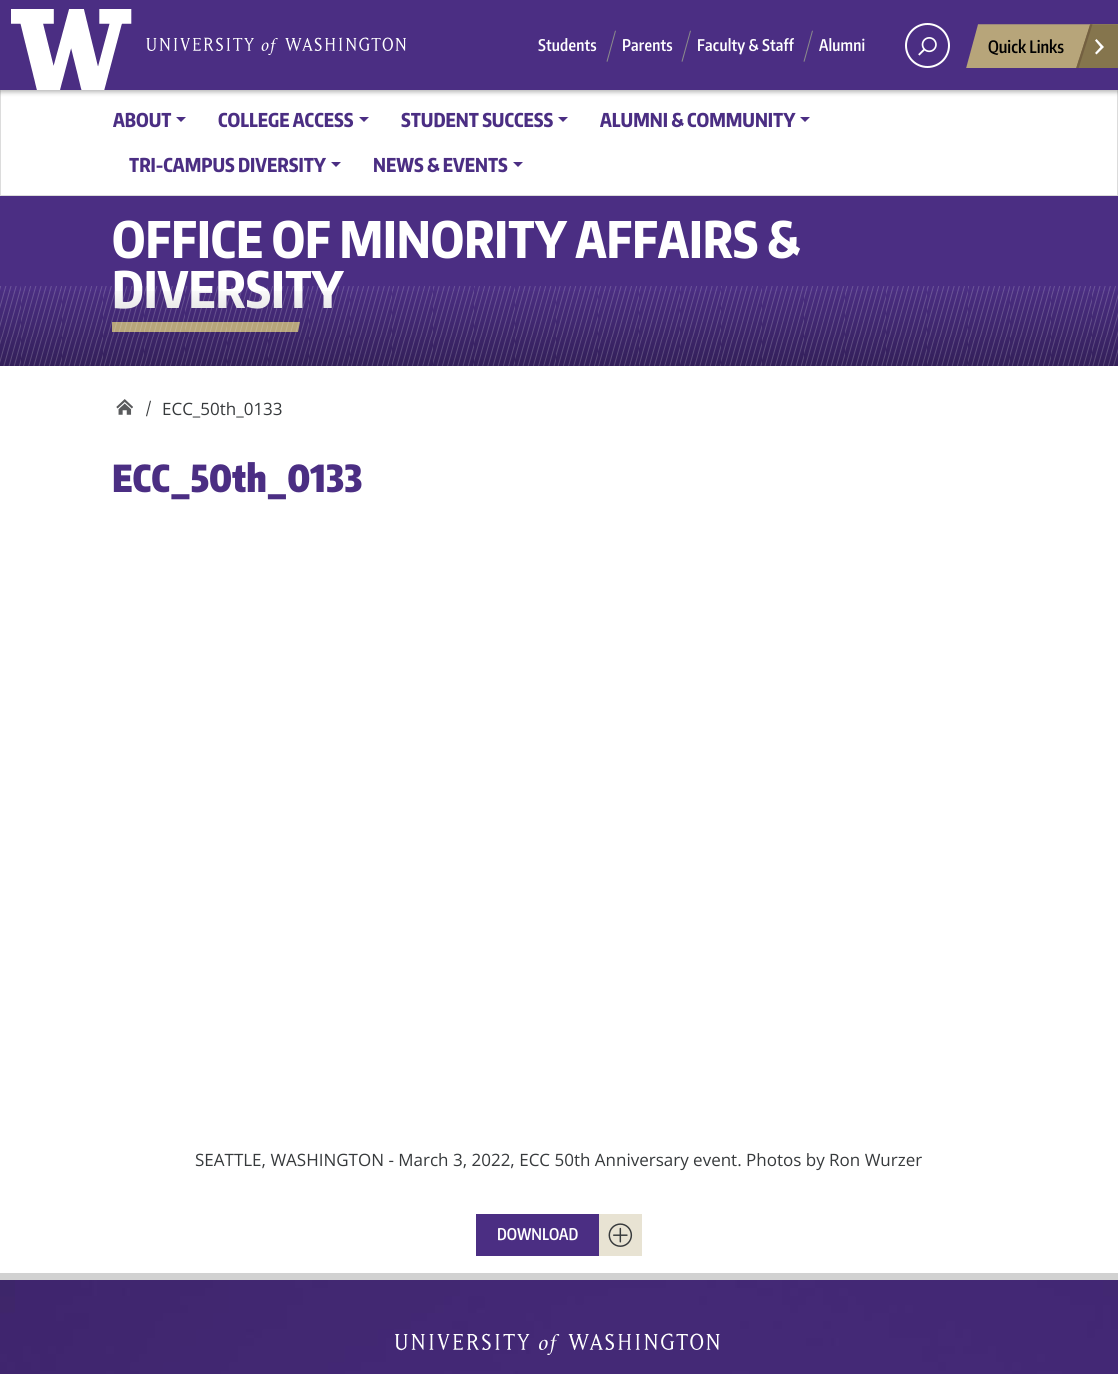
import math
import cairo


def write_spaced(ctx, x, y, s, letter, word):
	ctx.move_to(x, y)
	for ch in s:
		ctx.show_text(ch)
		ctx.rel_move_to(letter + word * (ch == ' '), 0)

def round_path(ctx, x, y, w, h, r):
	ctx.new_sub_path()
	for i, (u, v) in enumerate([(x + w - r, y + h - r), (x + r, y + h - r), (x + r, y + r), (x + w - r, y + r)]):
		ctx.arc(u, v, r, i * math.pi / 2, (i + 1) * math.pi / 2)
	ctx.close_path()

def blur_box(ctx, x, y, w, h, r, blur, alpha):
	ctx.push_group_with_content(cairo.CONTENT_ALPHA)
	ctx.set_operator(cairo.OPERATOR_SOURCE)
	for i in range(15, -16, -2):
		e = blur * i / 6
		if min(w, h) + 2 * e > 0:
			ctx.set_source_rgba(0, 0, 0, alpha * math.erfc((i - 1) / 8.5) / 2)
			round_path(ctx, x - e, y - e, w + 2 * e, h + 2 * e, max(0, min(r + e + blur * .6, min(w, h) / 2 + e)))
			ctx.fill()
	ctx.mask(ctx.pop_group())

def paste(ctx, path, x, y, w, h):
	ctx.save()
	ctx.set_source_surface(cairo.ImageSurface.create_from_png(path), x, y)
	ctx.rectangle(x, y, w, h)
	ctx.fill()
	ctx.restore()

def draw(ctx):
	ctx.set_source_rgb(1, 1, 1)
	ctx.paint()
	ctx.set_source_rgb(0.859, 0.859, 0.859)
	ctx.new_path()
	ctx.move_to(1118, 90)
	ctx.line_to(1118, 196)
	ctx.line_to(1117, 195)
	ctx.line_to(1117, 90)
	ctx.close_path()
	ctx.fill()
	ctx.set_source_rgba(0, 0, 0, 0.14)
	ctx.new_path()
	ctx.move_to(1118, 196)
	ctx.line_to(0, 196)
	ctx.line_to(1, 195)
	ctx.line_to(1117, 195)
	ctx.close_path()
	ctx.fill()
	ctx.new_path()
	ctx.move_to(0, 196)
	ctx.line_to(0, 90)
	ctx.line_to(1, 90)
	ctx.line_to(1, 195)
	ctx.close_path()
	ctx.fill()
	ctx.set_source_rgb(0, 0, 0)
	blur_box(ctx, 0, 2, 1118, 90, 0, 2.5, 0.3)
	ctx.set_source_rgb(0.294, 0.18, 0.514)
	ctx.rectangle(0, 0, 1118, 90)
	ctx.fill()
	paste(ctx, 'media/1.png', 11, 9, 121, 81)
	paste(ctx, 'media/2.png', 146, 37, 260, 18)
	ctx.select_font_face('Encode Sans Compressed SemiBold')
	ctx.set_font_size(16)
	ctx.set_source_rgb(1, 1, 1)
	write_spaced(ctx, 538, 51, 'Students', 0.2, 0)
	paste(ctx, 'media/3.png', 606, 30, 10, 32)
	write_spaced(ctx, 622, 51, 'Parents', 0.2, 0)
	paste(ctx, 'media/3.png', 681, 30, 10, 32)
	write_spaced(ctx, 697, 51, 'Faculty & Staff', 0.2, 0)
	paste(ctx, 'media/3.png', 803, 30, 10, 32)
	write_spaced(ctx, 819, 51, 'Alumni', 0.2, 0)
	ctx.new_path()
	ctx.arc(927.5, 45.5, 21.5, 0, 2 * math.pi)
	ctx.stroke()
	paste(ctx, 'media/4.png', 918, 37, 19, 19)
	paste(ctx, 'media/5.png', 966, 24, 152, 44)
	ctx.set_font_size(17)
	ctx.set_source_rgb(0, 0, 0)
	ctx.move_to(988, 53)
	ctx.show_text('Quick Links')
	ctx.set_source_rgb(1, 1, 1)
	ctx.new_path()
	ctx.move_to(1104, 47)
	ctx.line_to(1096.5, 39)
	ctx.line_to(1095, 40.5)
	ctx.line_to(1100.5, 47)
	ctx.line_to(1095, 53)
	ctx.line_to(1096.5, 54.5)
	ctx.close_path()
	ctx.fill()
	ctx.select_font_face('Encode Sans Compressed ExtraBold')
	ctx.set_font_size(19)
	ctx.set_source_rgb(0.294, 0.18, 0.514)
	ctx.move_to(113, 127)
	ctx.show_text('ABOUT')
	ctx.new_path()
	ctx.move_to(176, 117)
	ctx.line_to(186, 117)
	ctx.line_to(181, 122)
	ctx.close_path()
	ctx.fill()
	ctx.move_to(218, 127)
	ctx.show_text('COLLEGE ACCESS')
	ctx.new_path()
	ctx.move_to(359, 117)
	ctx.line_to(369, 117)
	ctx.line_to(364, 122)
	ctx.close_path()
	ctx.fill()
	ctx.move_to(401, 127)
	ctx.show_text('STUDENT SUCCESS')
	ctx.new_path()
	ctx.move_to(558, 117)
	ctx.line_to(568, 117)
	ctx.line_to(563, 122)
	ctx.close_path()
	ctx.fill()
	ctx.move_to(600, 127)
	ctx.show_text('ALUMNI & COMMUNITY')
	ctx.new_path()
	ctx.move_to(800, 117)
	ctx.line_to(810, 117)
	ctx.line_to(805, 122)
	ctx.close_path()
	ctx.fill()
	ctx.move_to(129, 172)
	ctx.show_text('TRI-CAMPUS DIVERSITY')
	ctx.new_path()
	ctx.move_to(331, 162)
	ctx.line_to(341, 162)
	ctx.line_to(336, 167)
	ctx.close_path()
	ctx.fill()
	ctx.move_to(373, 172)
	ctx.show_text('NEWS & EVENTS')
	ctx.new_path()
	ctx.move_to(513, 162)
	ctx.line_to(523, 162)
	ctx.line_to(518, 167)
	ctx.close_path()
	ctx.fill()
	ctx.rectangle(0, 196, 1118, 170)
	ctx.fill()
	ctx.set_font_size(50)
	ctx.set_source_rgb(1, 1, 1)
	ctx.move_to(112, 258)
	ctx.show_text('OFFICE OF MINORITY AFFAIRS &')
	ctx.move_to(112, 308)
	ctx.show_text('DIVERSITY')
	gradient = cairo.LinearGradient(0, 286, 0, 366)
	gradient.add_color_stop_rgba(0, 0, 0, 0, 0)
	gradient.add_color_stop_rgba(1, 0, 0, 0, 0.32)
	ctx.set_source(gradient)
	ctx.rectangle(0, 291, 1118, 75)
	ctx.fill()
	ctx.save()
	ctx.rectangle(112, 322, 894, 10)
	ctx.clip()
	ctx.set_source_rgb(0.718, 0.647, 0.478)
	ctx.new_path()
	ctx.move_to(108, 322)
	ctx.line_to(300, 322)
	ctx.line_to(298, 332)
	ctx.line_to(106, 332)
	ctx.close_path()
	ctx.fill()
	ctx.restore()
	paste(ctx, 'media/6.png', 0, 286, 1118, 80)
	paste(ctx, 'media/7.png', 116, 399, 17, 16)
	ctx.set_source_rgb(0.216, 0.227, 0.235)
	ctx.new_path()
	ctx.move_to(150, 400.5)
	ctx.line_to(151, 401)
	ctx.line_to(147, 416.5)
	ctx.line_to(146, 416)
	ctx.close_path()
	ctx.fill()
	ctx.select_font_face('Open Sans')
	ctx.set_font_size(17)
	ctx.move_to(162, 415)
	ctx.show_text('ECC_50th_0133')
	ctx.select_font_face('Encode Sans Compressed Black')
	ctx.set_font_size(37)
	ctx.set_source_rgb(0.294, 0.18, 0.514)
	ctx.move_to(112, 492)
	ctx.show_text('ECC_50th_0133')
	ctx.select_font_face('Open Sans')
	ctx.set_font_size(17)
	ctx.set_source_rgb(0.216, 0.227, 0.235)
	ctx.move_to(195, 1166)
	ctx.show_text('SEATTLE, WASHINGTON - March 3, 2022, ECC 50th Anniversary event. Photos by Ron Wurzer')
	ctx.set_source_rgb(0.294, 0.18, 0.514)
	ctx.rectangle(476, 1214, 123, 42)
	ctx.fill()
	ctx.select_font_face('Encode Sans Compressed SemiBold')
	ctx.set_font_size(16)
	ctx.set_source_rgb(1, 1, 1)
	ctx.move_to(497, 1240)
	ctx.show_text('DOWNLOAD')
	ctx.set_source_rgb(0.91, 0.89, 0.827)
	ctx.rectangle(599, 1214, 43, 42)
	ctx.fill()
	paste(ctx, 'media/8.png', 608, 1223, 25, 24)
	paste(ctx, 'media/9.png', 0, 1280, 1118, 94)
	ctx.set_source_rgb(0.82, 0.82, 0.82)
	ctx.rectangle(0, 1273, 1118, 7)
	ctx.fill()
	paste(ctx, 'media/10.png', 395, 1333, 325, 22)


surface = cairo.ImageSurface(cairo.FORMAT_RGB24, 1118, 1374)
ctx = cairo.Context(surface)
options = cairo.FontOptions()
options.set_hint_metrics(cairo.HINT_METRICS_OFF)
options.set_hint_style(cairo.HINT_STYLE_NONE)
ctx.set_font_options(options)
ctx.set_miter_limit(4)
draw(ctx)
surface.write_to_png('image.png')
